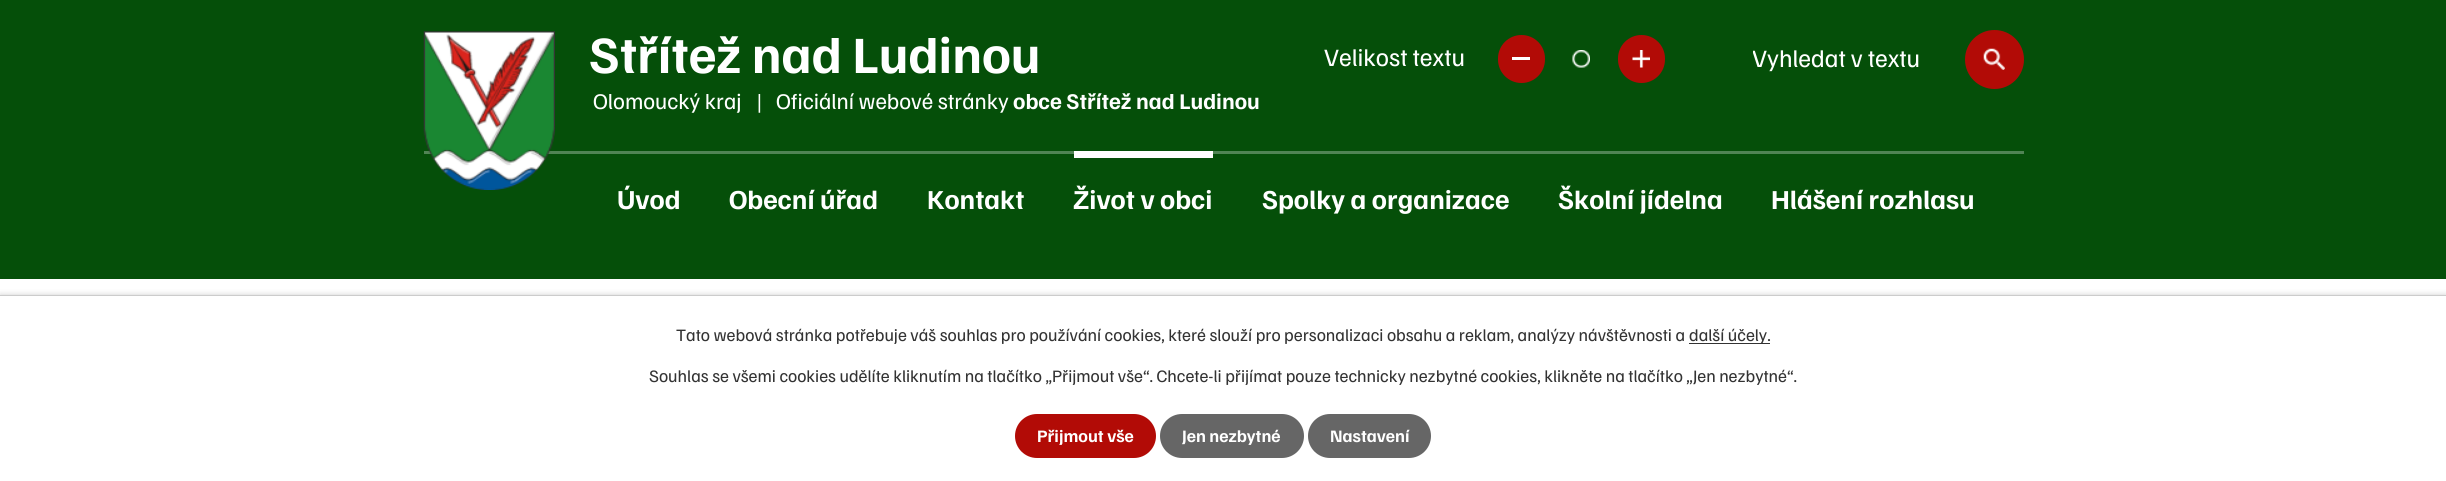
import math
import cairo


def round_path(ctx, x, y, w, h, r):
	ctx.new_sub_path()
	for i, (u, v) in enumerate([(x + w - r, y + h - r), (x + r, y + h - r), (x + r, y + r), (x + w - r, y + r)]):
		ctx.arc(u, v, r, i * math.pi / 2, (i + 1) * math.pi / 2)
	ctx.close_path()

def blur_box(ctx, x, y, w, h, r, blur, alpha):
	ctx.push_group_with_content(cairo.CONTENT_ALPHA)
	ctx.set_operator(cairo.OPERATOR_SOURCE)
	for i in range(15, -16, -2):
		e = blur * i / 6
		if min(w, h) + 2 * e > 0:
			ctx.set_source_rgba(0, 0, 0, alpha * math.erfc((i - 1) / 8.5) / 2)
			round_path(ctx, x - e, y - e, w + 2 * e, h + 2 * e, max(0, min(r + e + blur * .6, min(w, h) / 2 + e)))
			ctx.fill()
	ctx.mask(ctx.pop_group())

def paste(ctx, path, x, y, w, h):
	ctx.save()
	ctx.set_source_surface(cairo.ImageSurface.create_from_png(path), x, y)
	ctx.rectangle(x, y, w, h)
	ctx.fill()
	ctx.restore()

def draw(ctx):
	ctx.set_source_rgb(1, 1, 1)
	ctx.paint()
	ctx.set_source_rgb(0.02, 0.31, 0.039)
	ctx.rectangle(0, 0, 2446, 279)
	ctx.fill()
	ctx.set_source_rgb(0.314, 0.518, 0.329)
	ctx.rectangle(424, 151, 1600, 3)
	ctx.fill()
	paste(ctx, 'media/1.png', 423, 31, 132, 159)
	ctx.select_font_face('Familjen Grotesk', cairo.FONT_SLANT_NORMAL, cairo.FONT_WEIGHT_BOLD)
	ctx.set_font_size(52.5)
	ctx.set_source_rgb(1, 1, 1)
	ctx.move_to(589, 73)
	ctx.show_text('Střítež nad Ludinou')
	ctx.select_font_face('Familjen Grotesk')
	ctx.set_font_size(22.5)
	for x, y, s in [
		(593, 109, 'Olomoucký kraj'),
		(756, 109, '|'),
		(776, 109, 'Oficiální webové stránky'),
	]:
		ctx.move_to(x, y)
		ctx.show_text(s)
	ctx.select_font_face('Familjen Grotesk', cairo.FONT_SLANT_NORMAL, cairo.FONT_WEIGHT_BOLD)
	ctx.move_to(1013, 109)
	ctx.show_text('obce Střítež nad Ludinou')
	ctx.select_font_face('Familjen Grotesk')
	ctx.set_font_size(25)
	ctx.move_to(1324, 66)
	ctx.show_text('Velikost textu')
	ctx.set_source_rgb(0.698, 0.043, 0.024)
	round_path(ctx, 1498, 35, 47, 48, 23.5)
	ctx.fill()
	ctx.set_source_rgb(1, 1, 1)
	ctx.rectangle(1512, 57, 18, 3)
	ctx.fill()
	paste(ctx, 'media/2.png', 1572, 50, 18, 18)
	ctx.set_source_rgb(0.698, 0.043, 0.024)
	round_path(ctx, 1618, 35, 47, 48, 23.5)
	ctx.fill()
	paste(ctx, 'media/3.png', 1632, 50, 18, 18)
	ctx.save()
	ctx.rectangle(1753, 43, 190, 30)
	ctx.clip()
	ctx.set_source_rgb(1, 1, 1)
	ctx.move_to(1752, 67)
	ctx.show_text('Vyhledat v textu')
	ctx.restore()
	ctx.new_path()
	ctx.arc(1994.5, 59.5, 29.5, 0, 2 * math.pi)
	ctx.fill()
	paste(ctx, 'media/4.png', 1983, 48, 22, 22)
	ctx.select_font_face('Familjen Grotesk', cairo.FONT_SLANT_NORMAL, cairo.FONT_WEIGHT_BOLD)
	ctx.set_font_size(27.5)
	ctx.set_source_rgb(1, 1, 1)
	for x, y, s in [
		(617, 209, 'Úvod'),
		(729, 209, 'Obecní úřad'),
		(927, 209, 'Kontakt'),
	]:
		ctx.move_to(x, y)
		ctx.show_text(s)
	ctx.rectangle(1074, 151, 139, 7)
	ctx.fill()
	for x, y, s in [
		(1073, 209, 'Život v obci'),
		(1262, 209, 'Spolky a organizace'),
		(1558, 209, 'Školní jídelna'),
		(1771, 209, 'Hlášení rozhlasu'),
	]:
		ctx.move_to(x, y)
		ctx.show_text(s)
	ctx.set_source_rgb(0, 0, 0)
	blur_box(ctx, 0, 295, 2446, 186, 0, 3, 0.2)
	ctx.set_source_rgb(1, 1, 1)
	ctx.rectangle(0, 296, 2446, 185)
	ctx.fill()
	ctx.set_source_rgb(0.8, 0.8, 0.8)
	ctx.rectangle(0, 295, 2446, 1)
	ctx.fill()
	ctx.select_font_face('Familjen Grotesk')
	ctx.set_font_size(17.5)
	ctx.set_source_rgb(0.2, 0.2, 0.2)
	ctx.move_to(676, 341)
	ctx.show_text('Tato webová stránka potřebuje váš souhlas pro používání cookies, které slouží pro personalizaci obsahu a reklam, analýzy návštěvnosti a')
	ctx.rectangle(1689, 343, 81, 1)
	ctx.fill()
	ctx.move_to(1689, 341)
	ctx.show_text('další účely.')
	ctx.move_to(649, 382)
	ctx.show_text('Souhlas se všemi cookies udělíte kliknutím na tlačítko „Přijmout vše“. Chcete-li přijímat pouze technicky nezbytné cookies, klikněte na tlačítko „Jen nezbytné“.')
	ctx.set_source_rgb(0.698, 0.043, 0.024)
	round_path(ctx, 1015, 414, 141, 44, 22)
	ctx.fill()
	ctx.select_font_face('Familjen Grotesk', cairo.FONT_SLANT_NORMAL, cairo.FONT_WEIGHT_BOLD)
	ctx.set_source_rgb(1, 1, 1)
	ctx.move_to(1037, 442)
	ctx.show_text('Přijmout vše')
	ctx.set_source_rgb(0.4, 0.4, 0.4)
	round_path(ctx, 1160, 414, 144, 44, 22)
	ctx.fill()
	ctx.set_source_rgb(1, 1, 1)
	ctx.move_to(1182, 442)
	ctx.show_text('Jen nezbytné')
	ctx.set_source_rgb(0.4, 0.4, 0.4)
	round_path(ctx, 1308, 414, 123, 44, 22)
	ctx.fill()
	ctx.set_source_rgb(1, 1, 1)
	ctx.move_to(1330, 442)
	ctx.show_text('Nastavení')


surface = cairo.ImageSurface(cairo.FORMAT_RGB24, 2446, 481)
ctx = cairo.Context(surface)
options = cairo.FontOptions()
options.set_hint_metrics(cairo.HINT_METRICS_OFF)
options.set_hint_style(cairo.HINT_STYLE_NONE)
ctx.set_font_options(options)
ctx.set_miter_limit(4)
draw(ctx)
surface.write_to_png('image.png')
